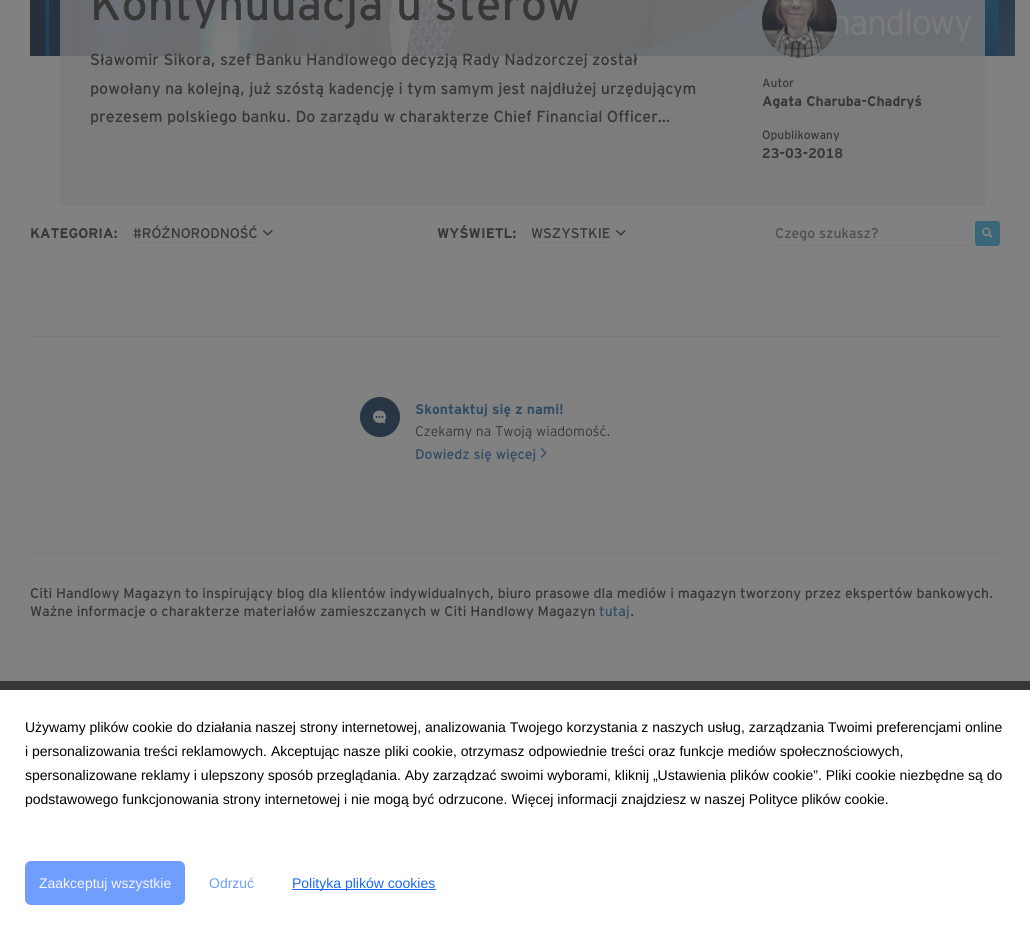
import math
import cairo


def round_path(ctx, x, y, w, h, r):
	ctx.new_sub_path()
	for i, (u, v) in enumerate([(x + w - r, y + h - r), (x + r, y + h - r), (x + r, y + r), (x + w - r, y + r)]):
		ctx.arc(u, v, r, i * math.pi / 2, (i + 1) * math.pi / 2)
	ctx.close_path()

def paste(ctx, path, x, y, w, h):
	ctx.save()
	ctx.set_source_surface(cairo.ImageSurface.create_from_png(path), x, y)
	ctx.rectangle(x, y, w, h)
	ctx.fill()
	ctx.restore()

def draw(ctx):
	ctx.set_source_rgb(0.506, 0.506, 0.506)
	ctx.paint()
	ctx.set_source_rgb(0.486, 0.486, 0.486)
	ctx.rectangle(60, 56, 925, 150)
	ctx.fill()
	paste(ctx, 'media/1.png', 30, 0, 985, 56)
	ctx.select_font_face('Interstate')
	ctx.set_font_size(46)
	ctx.set_source_rgb(0.216, 0.216, 0.216)
	ctx.move_to(90, 20)
	ctx.show_text('Kontynuuacja u sterów')
	ctx.set_font_size(16)
	for x, y, s in [
		(90, 65, 'Sławomir Sikora, szef Banku Handlowego decyzją Rady Nadzorczej został'),
		(90, 94, 'powołany na kolejną, już szóstą kadencję i tym samym jest najdłużej urzędującym'),
		(90, 122, 'prezesem polskiego banku. Do zarządu w charakterze Chief Financial Officer…'),
	]:
		ctx.move_to(x, y)
		ctx.show_text(s)
	paste(ctx, 'media/2.png', 762, 0, 75, 58)
	ctx.set_font_size(12)
	ctx.move_to(762, 87)
	ctx.show_text('Autor')
	ctx.select_font_face('Interstate', cairo.FONT_SLANT_NORMAL, cairo.FONT_WEIGHT_BOLD)
	ctx.set_font_size(14)
	ctx.move_to(762, 106)
	ctx.show_text('Agata Charuba-Chadryś')
	ctx.select_font_face('Interstate')
	ctx.set_font_size(12)
	ctx.move_to(762, 139)
	ctx.show_text('Opublikowany')
	ctx.select_font_face('Interstate', cairo.FONT_SLANT_NORMAL, cairo.FONT_WEIGHT_BOLD)
	ctx.set_font_size(14)
	ctx.move_to(762, 158)
	ctx.show_text('23-03-2018')
	ctx.move_to(30, 238)
	ctx.show_text('KATEGORIA:')
	ctx.set_source_rgb(0.482, 0.478, 0.482)
	ctx.rectangle(133, 242, 125, 1)
	ctx.fill()
	ctx.select_font_face('Interstate')
	ctx.set_source_rgb(0.216, 0.216, 0.216)
	ctx.move_to(133, 238)
	ctx.show_text('#RÓŻNORODNOŚĆ')
	paste(ctx, 'media/3.png', 263, 230, 10, 6)
	ctx.select_font_face('Interstate', cairo.FONT_SLANT_NORMAL, cairo.FONT_WEIGHT_BOLD)
	ctx.move_to(437, 238)
	ctx.show_text('WYŚWIETL:')
	ctx.set_source_rgb(0.482, 0.478, 0.482)
	ctx.rectangle(531, 242, 80, 1)
	ctx.fill()
	ctx.select_font_face('Interstate')
	ctx.set_source_rgb(0.216, 0.216, 0.216)
	ctx.move_to(531, 238)
	ctx.show_text('WSZYSTKIE')
	paste(ctx, 'media/3.png', 616, 230, 10, 6)
	ctx.set_source_rgb(0.482, 0.478, 0.482)
	ctx.rectangle(775, 245, 200, 1)
	ctx.fill()
	ctx.set_source_rgb(0.31, 0.31, 0.31)
	ctx.move_to(775, 238)
	ctx.show_text('Czego szukasz?')
	ctx.set_source_rgb(0.224, 0.404, 0.475)
	round_path(ctx, 975, 221, 25, 25, 3)
	ctx.fill()
	paste(ctx, 'media/4.png', 982, 227, 11, 11)
	ctx.set_source_rgb(0.482, 0.478, 0.482)
	ctx.rectangle(30, 336, 970, 1)
	ctx.fill()
	ctx.set_source_rgb(0.157, 0.208, 0.267)
	ctx.arc(380, 417, 20, 0, 2 * math.pi)
	ctx.fill()
	paste(ctx, 'media/5.png', 373, 410, 13, 14)
	ctx.select_font_face('Interstate', cairo.FONT_SLANT_NORMAL, cairo.FONT_WEIGHT_BOLD)
	ctx.set_source_rgb(0.192, 0.298, 0.392)
	ctx.move_to(415, 414)
	ctx.show_text('Skontaktuj się z nami!')
	ctx.select_font_face('Interstate Light')
	ctx.set_source_rgb(0.216, 0.216, 0.216)
	ctx.move_to(415, 436)
	ctx.show_text('Czekamy na Twoją wiadomość.')
	ctx.select_font_face('Interstate')
	ctx.set_source_rgb(0.192, 0.298, 0.392)
	ctx.move_to(415, 459)
	ctx.show_text('Dowiedz się więcej')
	paste(ctx, 'media/6.png', 541, 448, 6, 10)
	ctx.set_source_rgb(0.482, 0.478, 0.482)
	ctx.rectangle(30, 553, 970, 1)
	ctx.fill()
	ctx.set_source_rgb(0.216, 0.216, 0.216)
	ctx.move_to(30, 598)
	ctx.show_text('Citi Handlowy Magazyn to inspirujący blog dla klientów indywidualnych, biuro prasowe dla mediów i magazyn tworzony przez ekspertów bankowych.')
	ctx.move_to(30, 616)
	ctx.show_text('Ważne informacje o charakterze materiałów zamieszczanych w Citi Handlowy Magazyn')
	ctx.set_source_rgb(0.192, 0.298, 0.392)
	ctx.move_to(599, 616)
	ctx.show_text('tutaj')
	ctx.set_source_rgb(0.216, 0.216, 0.216)
	ctx.move_to(630, 616)
	ctx.show_text('.')
	ctx.rectangle(0, 681, 1030, 9)
	ctx.fill()
	ctx.set_source_rgb(1, 1, 1)
	ctx.rectangle(0, 690, 1030, 240)
	ctx.fill()
	ctx.select_font_face('Liberation Sans')
	ctx.set_source_rgb(0, 0, 0)
	for x, y, s in [
		(25, 732, 'Używamy plików cookie do działania naszej strony internetowej, analizowania Twojego korzystania z naszych usług, zarządzania Twoimi preferencjami online'),
		(25, 756, 'i personalizowania treści reklamowych. Akceptując nasze pliki cookie, otrzymasz odpowiednie treści oraz funkcje mediów społecznościowych,'),
		(25, 780, 'spersonalizowane reklamy i ulepszony sposób przeglądania. Aby zarządzać swoimi wyborami, kliknij „Ustawienia plików cookie”. Pliki cookie niezbędne są do'),
		(25, 804, 'podstawowego funkcjonowania strony internetowej i nie mogą być odrzucone. Więcej informacji znajdziesz w naszej Polityce plików cookie.'),
	]:
		ctx.move_to(x, y)
		ctx.show_text(s)
	ctx.set_source_rgb(0.435, 0.62, 1)
	round_path(ctx, 25, 861, 160, 44, 6)
	ctx.fill()
	ctx.set_source_rgb(0.961, 0.957, 1)
	ctx.move_to(39, 888)
	ctx.show_text('Zaakceptuj wszystkie')
	ctx.set_source_rgb(0.435, 0.62, 1)
	ctx.move_to(209, 888)
	ctx.show_text('Odrzuć')
	ctx.set_source_rgb(0.102, 0.412, 0.937)
	ctx.rectangle(292, 889, 144, 1)
	ctx.fill()
	ctx.move_to(292, 888)
	ctx.show_text('Polityka plików cookies')


surface = cairo.ImageSurface(cairo.FORMAT_RGB24, 1030, 930)
ctx = cairo.Context(surface)
options = cairo.FontOptions()
options.set_hint_metrics(cairo.HINT_METRICS_OFF)
options.set_hint_style(cairo.HINT_STYLE_NONE)
ctx.set_font_options(options)
ctx.set_miter_limit(4)
draw(ctx)
surface.write_to_png('image.png')
